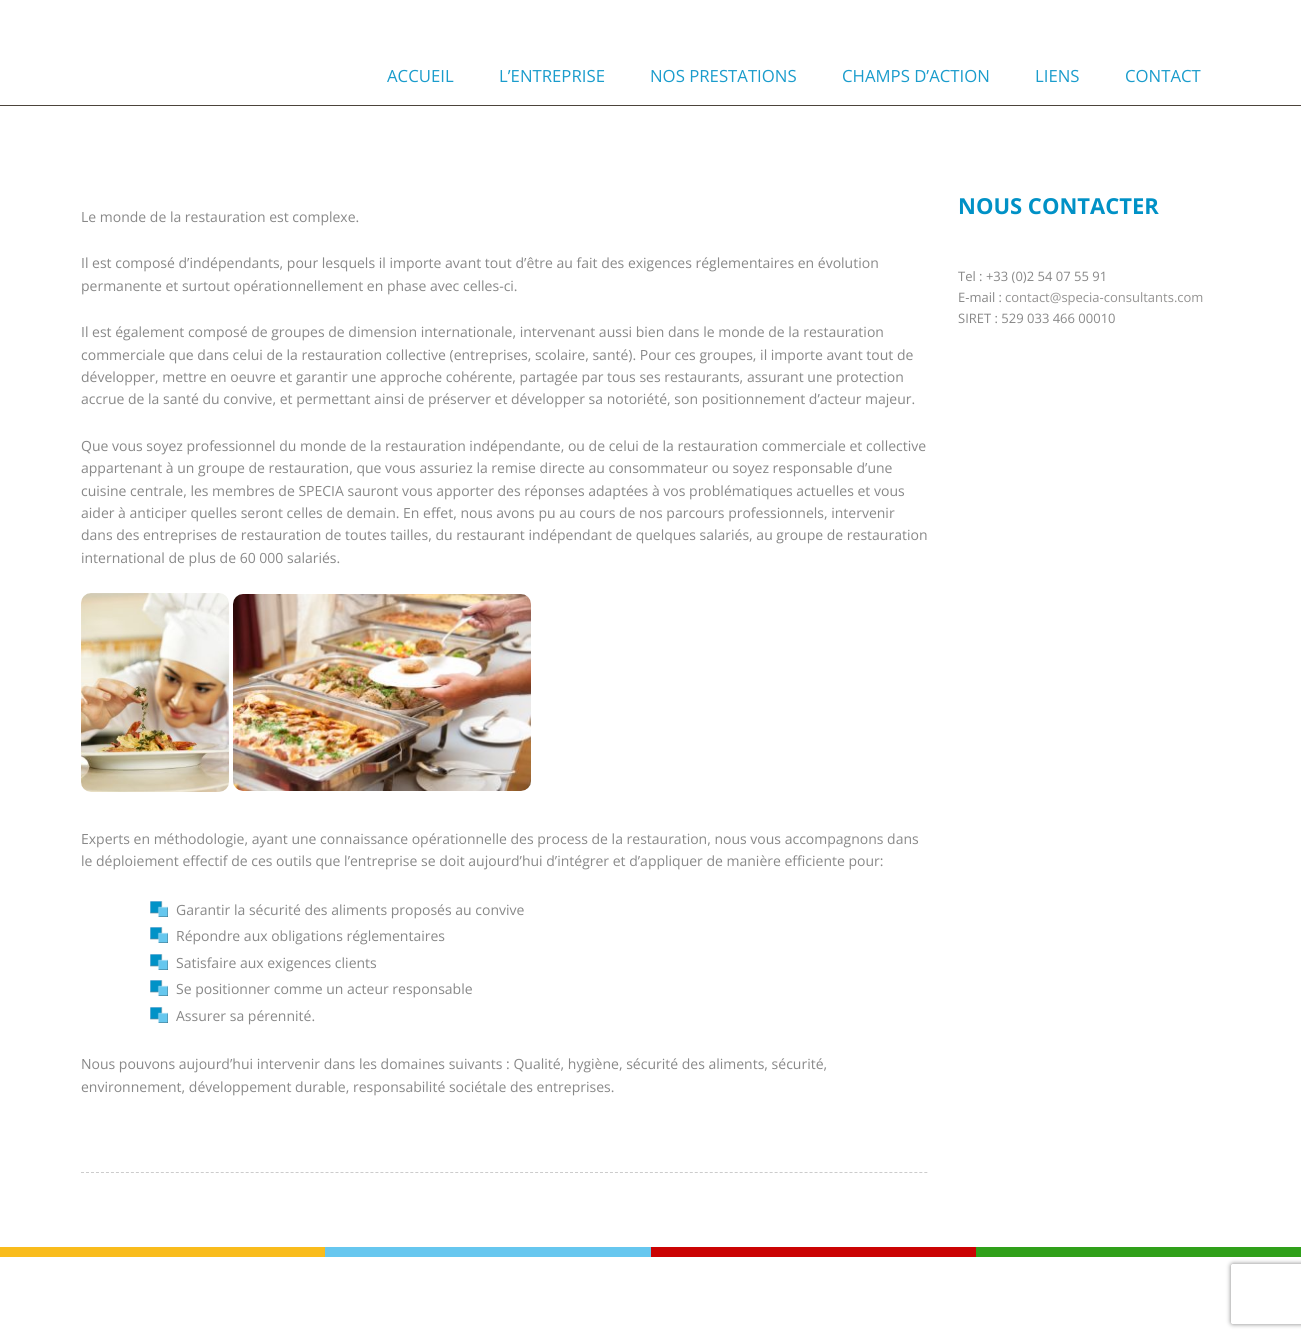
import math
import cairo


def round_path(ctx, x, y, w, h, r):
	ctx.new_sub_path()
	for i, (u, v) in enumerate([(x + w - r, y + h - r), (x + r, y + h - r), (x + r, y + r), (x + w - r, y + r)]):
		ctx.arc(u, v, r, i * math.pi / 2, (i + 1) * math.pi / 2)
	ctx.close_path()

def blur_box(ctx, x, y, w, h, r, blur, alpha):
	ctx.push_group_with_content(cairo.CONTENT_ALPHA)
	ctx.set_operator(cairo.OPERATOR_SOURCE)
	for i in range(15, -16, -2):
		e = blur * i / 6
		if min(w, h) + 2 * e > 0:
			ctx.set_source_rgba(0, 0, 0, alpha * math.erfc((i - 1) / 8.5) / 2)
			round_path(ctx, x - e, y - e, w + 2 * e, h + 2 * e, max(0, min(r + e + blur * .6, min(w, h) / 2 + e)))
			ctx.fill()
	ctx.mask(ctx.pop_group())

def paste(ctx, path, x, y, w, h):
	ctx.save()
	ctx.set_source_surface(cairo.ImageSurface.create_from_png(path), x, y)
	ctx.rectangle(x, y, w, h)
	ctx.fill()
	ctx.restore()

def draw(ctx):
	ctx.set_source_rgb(1, 1, 1)
	ctx.paint()
	ctx.set_source_rgb(0.298, 0.267, 0.231)
	ctx.rectangle(0, 105, 1301, 1)
	ctx.fill()
	ctx.select_font_face('Open Sans')
	ctx.set_font_size(16.75)
	ctx.set_source_rgb(0.102, 0.612, 0.8)
	for x, y, s in [
		(387, 82, 'ACCUEIL'),
		(499, 82, 'L’ENTREPRISE'),
		(650, 82, 'NOS PRESTATIONS'),
		(842, 82, 'CHAMPS D’ACTION'),
		(1035, 82, 'LIENS'),
		(1125, 82, 'CONTACT'),
	]:
		ctx.move_to(x, y)
		ctx.show_text(s)
	ctx.set_font_size(14)
	ctx.set_source_rgb(0.533, 0.533, 0.533)
	for x, y, s in [
		(81, 222, 'Le monde de la restauration est complexe.'),
		(81, 268, 'Il est composé d’indépendants, pour lesquels il importe avant tout d’être au fait des exigences réglementaires en évolution'),
		(81, 291, 'permanente et surtout opérationnellement en phase avec celles-ci.'),
		(81, 337, 'Il est également composé de groupes de dimension internationale, intervenant aussi bien dans le monde de la restauration'),
		(81, 360, 'commerciale que dans celui de la restauration collective (entreprises, scolaire, santé). Pour ces groupes, il importe avant tout de'),
		(81, 382, 'développer, mettre en oeuvre et garantir une approche cohérente, partagée par tous ses restaurants, assurant une protection'),
		(81, 404, 'accrue de la santé du convive, et permettant ainsi de préserver et développer sa notoriété, son positionnement d’acteur majeur.'),
		(81, 451, 'Que vous soyez professionnel du monde de la restauration indépendante, ou de celui de la restauration commerciale et collective'),
		(81, 473, 'appartenant à un groupe de restauration, que vous assuriez la remise directe au consommateur ou soyez responsable d’une'),
		(81, 496, 'cuisine centrale, les membres de SPECIA sauront vous apporter des réponses adaptées à vos problématiques actuelles et vous'),
		(81, 518, 'aider à anticiper quelles seront celles de demain. En effet, nous avons pu au cours de nos parcours professionnels, intervenir'),
		(81, 540, 'dans des entreprises de restauration de toutes tailles, du restaurant indépendant de quelques salariés, au groupe de restauration'),
		(81, 563, 'international de plus de 60 000 salariés.'),
	]:
		ctx.move_to(x, y)
		ctx.show_text(s)
	paste(ctx, 'media/1.png', 81, 593, 148, 199)
	paste(ctx, 'media/2.png', 233, 594, 298, 197)
	ctx.move_to(81, 844)
	ctx.show_text('Experts en méthodologie, ayant une connaissance opérationnelle des process de la restauration, nous vous accompagnons dans')
	ctx.move_to(81, 866)
	ctx.show_text('le déploiement effectif de ces outils que l’entreprise se doit aujourd’hui d’intégrer et d’appliquer de manière efficiente pour:')
	paste(ctx, 'media/3.png', 150, 901, 18, 16)
	ctx.move_to(176, 915)
	ctx.show_text('Garantir la sécurité des aliments proposés au convive')
	paste(ctx, 'media/3.png', 150, 927, 18, 16)
	ctx.move_to(176, 941)
	ctx.show_text('Répondre aux obligations réglementaires')
	paste(ctx, 'media/3.png', 150, 954, 18, 16)
	ctx.move_to(176, 968)
	ctx.show_text('Satisfaire aux exigences clients')
	paste(ctx, 'media/3.png', 150, 980, 18, 16)
	ctx.move_to(176, 994)
	ctx.show_text('Se positionner comme un acteur responsable')
	paste(ctx, 'media/3.png', 150, 1007, 18, 16)
	for x, y, s in [
		(176, 1021, 'Assurer sa pérennité.'),
		(81, 1069, 'Nous pouvons aujourd’hui intervenir dans les domaines suivants : Qualité, hygiène, sécurité des aliments, sécurité,'),
		(81, 1092, 'environnement, développement durable, responsabilité sociétale des entreprises.'),
	]:
		ctx.move_to(x, y)
		ctx.show_text(s)
	ctx.new_path()
	ctx.move_to(81, 1172.5)
	ctx.line_to(928, 1172.5)
	ctx.set_source_rgb(0.8, 0.8, 0.8)
	ctx.set_line_width(1)
	ctx.set_dash([3, 1.99])
	ctx.stroke()
	ctx.select_font_face('Open Sans', cairo.FONT_SLANT_NORMAL, cairo.FONT_WEIGHT_BOLD)
	ctx.set_font_size(22)
	ctx.set_source_rgb(0, 0.569, 0.776)
	ctx.move_to(958, 214)
	ctx.show_text('NOUS CONTACTER')
	ctx.select_font_face('Open Sans')
	ctx.set_font_size(13)
	ctx.set_source_rgb(0.533, 0.533, 0.533)
	ctx.move_to(958, 281)
	ctx.show_text('Tel : +33 (0)2 54 07 55 91')
	ctx.move_to(958, 302)
	ctx.show_text('E-mail :')
	ctx.set_source_rgb(0.58, 0.576, 0.573)
	ctx.move_to(1005, 302)
	ctx.show_text('contact@specia-consultants.com')
	ctx.set_source_rgb(0.533, 0.533, 0.533)
	ctx.move_to(958, 323)
	ctx.show_text('SIRET : 529 033 466 00010')
	ctx.set_source_rgb(0.973, 0.737, 0.114)
	ctx.rectangle(0, 1247, 325, 10)
	ctx.fill()
	ctx.set_source_rgb(0.404, 0.78, 0.937)
	ctx.rectangle(325, 1247, 326, 10)
	ctx.fill()
	ctx.set_source_rgb(0.796, 0.012, 0.012)
	ctx.rectangle(651, 1247, 325, 10)
	ctx.fill()
	ctx.set_source_rgb(0.188, 0.627, 0.102)
	ctx.rectangle(976, 1247, 325, 10)
	ctx.fill()
	ctx.save()
	ctx.set_fill_rule(cairo.FILL_RULE_EVEN_ODD)
	ctx.new_path()
	ctx.move_to(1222, 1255)
	ctx.line_to(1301, 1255)
	ctx.line_to(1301, 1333)
	ctx.line_to(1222, 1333)
	ctx.close_path()
	ctx.move_to(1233, 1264)
	ctx.line_to(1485, 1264)
	ctx.curve_to(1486, 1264, 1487, 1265, 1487, 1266)
	ctx.line_to(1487, 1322)
	ctx.curve_to(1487, 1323, 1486, 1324, 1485, 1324)
	ctx.line_to(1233, 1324)
	ctx.curve_to(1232, 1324, 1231, 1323, 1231, 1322)
	ctx.line_to(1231, 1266)
	ctx.curve_to(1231, 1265, 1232, 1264, 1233, 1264)
	ctx.close_path()
	ctx.clip()
	ctx.set_source_rgb(0.502, 0.502, 0.502)
	blur_box(ctx, 1231, 1264, 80, 60, 2, 2.5, 1)
	ctx.restore()


surface = cairo.ImageSurface(cairo.FORMAT_RGB24, 1301, 1338)
ctx = cairo.Context(surface)
options = cairo.FontOptions()
options.set_hint_metrics(cairo.HINT_METRICS_OFF)
options.set_hint_style(cairo.HINT_STYLE_NONE)
ctx.set_font_options(options)
ctx.set_miter_limit(4)
draw(ctx)
surface.write_to_png('image.png')
